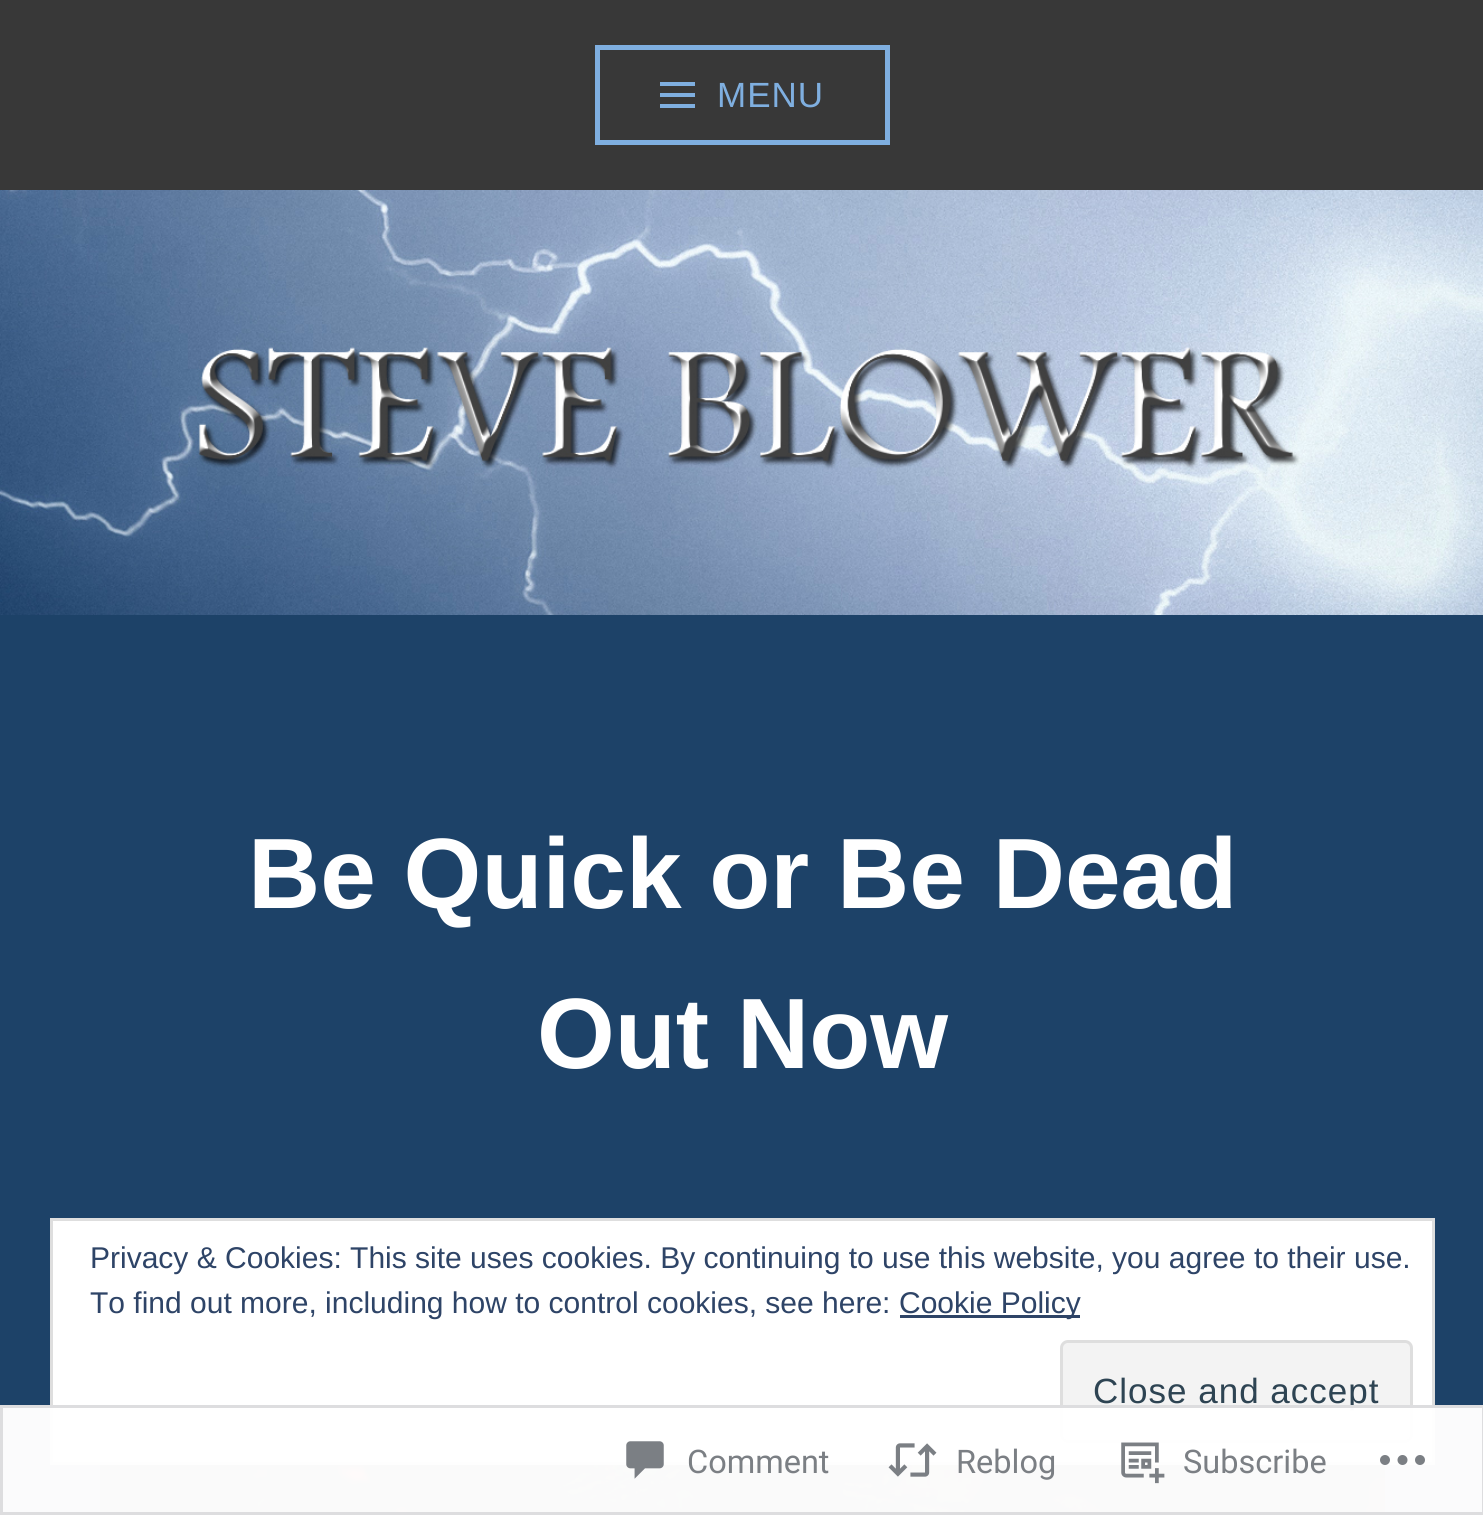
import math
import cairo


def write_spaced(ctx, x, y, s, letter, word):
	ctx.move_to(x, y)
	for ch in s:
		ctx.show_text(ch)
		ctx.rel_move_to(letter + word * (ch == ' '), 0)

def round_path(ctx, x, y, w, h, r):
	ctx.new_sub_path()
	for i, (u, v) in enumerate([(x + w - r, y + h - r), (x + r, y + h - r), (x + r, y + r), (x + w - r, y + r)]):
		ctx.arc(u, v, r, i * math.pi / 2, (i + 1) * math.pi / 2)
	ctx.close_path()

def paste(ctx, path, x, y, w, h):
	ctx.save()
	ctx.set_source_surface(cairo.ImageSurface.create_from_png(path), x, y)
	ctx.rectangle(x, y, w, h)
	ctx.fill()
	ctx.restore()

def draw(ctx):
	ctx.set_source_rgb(0.114, 0.259, 0.408)
	ctx.paint()
	ctx.set_source_rgb(0.22, 0.22, 0.22)
	ctx.rectangle(0, 0, 1483, 190)
	ctx.fill()
	ctx.rectangle(597.5, 47.5, 290, 95)
	ctx.set_source_rgb(0.498, 0.686, 0.878)
	ctx.set_line_width(5)
	ctx.stroke()
	ctx.new_path()
	ctx.move_to(660, 108)
	ctx.line_to(660, 104)
	ctx.line_to(695, 104)
	ctx.line_to(695, 108)
	ctx.close_path()
	ctx.move_to(660, 82)
	ctx.line_to(695, 82)
	ctx.line_to(695, 86)
	ctx.line_to(660, 86)
	ctx.close_path()
	ctx.move_to(660, 97)
	ctx.line_to(660, 93)
	ctx.line_to(695, 93)
	ctx.line_to(695, 97)
	ctx.close_path()
	ctx.fill()
	ctx.select_font_face('Arimo')
	ctx.set_font_size(35)
	write_spaced(ctx, 717, 107, 'MENU', 1, 0)
	paste(ctx, 'media/1.png', 0, 190, 1483, 425)
	ctx.select_font_face('Arimo', cairo.FONT_SLANT_NORMAL, cairo.FONT_WEIGHT_BOLD)
	ctx.set_font_size(100)
	ctx.set_source_rgb(1, 1, 1)
	ctx.move_to(248, 908)
	ctx.show_text('Be Quick or Be Dead')
	ctx.move_to(537, 1068)
	ctx.show_text('Out Now')
	paste(ctx, 'media/2.png', 100, 1465, 1285, 50)
	ctx.rectangle(51.5, 1219.5, 1382, 244)
	ctx.fill_preserve()
	ctx.set_source_rgb(0.871, 0.871, 0.871)
	ctx.set_line_width(3)
	ctx.stroke()
	ctx.select_font_face('Arimo')
	ctx.set_font_size(30)
	ctx.set_source_rgb(0.18, 0.267, 0.404)
	ctx.move_to(90, 1268)
	ctx.show_text('Privacy & Cookies: This site uses cookies. By continuing to use this website, you agree to their use.')
	ctx.move_to(90, 1313)
	ctx.show_text('To find out more, including how to control cookies, see here:')
	ctx.rectangle(900, 1315, 180, 3)
	ctx.fill()
	ctx.move_to(899, 1313)
	ctx.show_text('Cookie Policy')
	ctx.set_source_rgb(0.953, 0.953, 0.953)
	round_path(ctx, 1061.5, 1341.5, 350, 100, 6.5)
	ctx.fill_preserve()
	ctx.set_source_rgb(0.871, 0.871, 0.871)
	ctx.stroke()
	ctx.set_font_size(35)
	ctx.set_source_rgb(0.18, 0.267, 0.325)
	write_spaced(ctx, 1093, 1403, 'Close and accept', 1, 0)
	ctx.set_source_rgba(1, 1, 1, 0.98)
	ctx.rectangle(0, 1405, 1483, 110)
	ctx.fill()
	ctx.rectangle(1.5, 1406.5, 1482, 107)
	ctx.set_source_rgba(0.863, 0.863, 0.871, 0.98)
	ctx.stroke()
	paste(ctx, 'media/3.png', 626, 1441, 38, 38)
	ctx.select_font_face('Roboto')
	ctx.set_font_size(32.5)
	ctx.set_source_rgb(0.482, 0.498, 0.518)
	ctx.move_to(687, 1473)
	ctx.show_text('Comment')
	paste(ctx, 'media/4.png', 888, 1443, 49, 34)
	ctx.move_to(956, 1473)
	ctx.show_text('Reblog')
	paste(ctx, 'media/5.png', 1121, 1442, 44, 42)
	ctx.move_to(1183, 1473)
	ctx.show_text('Subscribe')
	paste(ctx, 'media/6.png', 1380, 1455, 45, 10)


surface = cairo.ImageSurface(cairo.FORMAT_RGB24, 1483, 1515)
ctx = cairo.Context(surface)
options = cairo.FontOptions()
options.set_hint_metrics(cairo.HINT_METRICS_OFF)
options.set_hint_style(cairo.HINT_STYLE_NONE)
ctx.set_font_options(options)
ctx.set_miter_limit(4)
draw(ctx)
surface.write_to_png('image.png')
